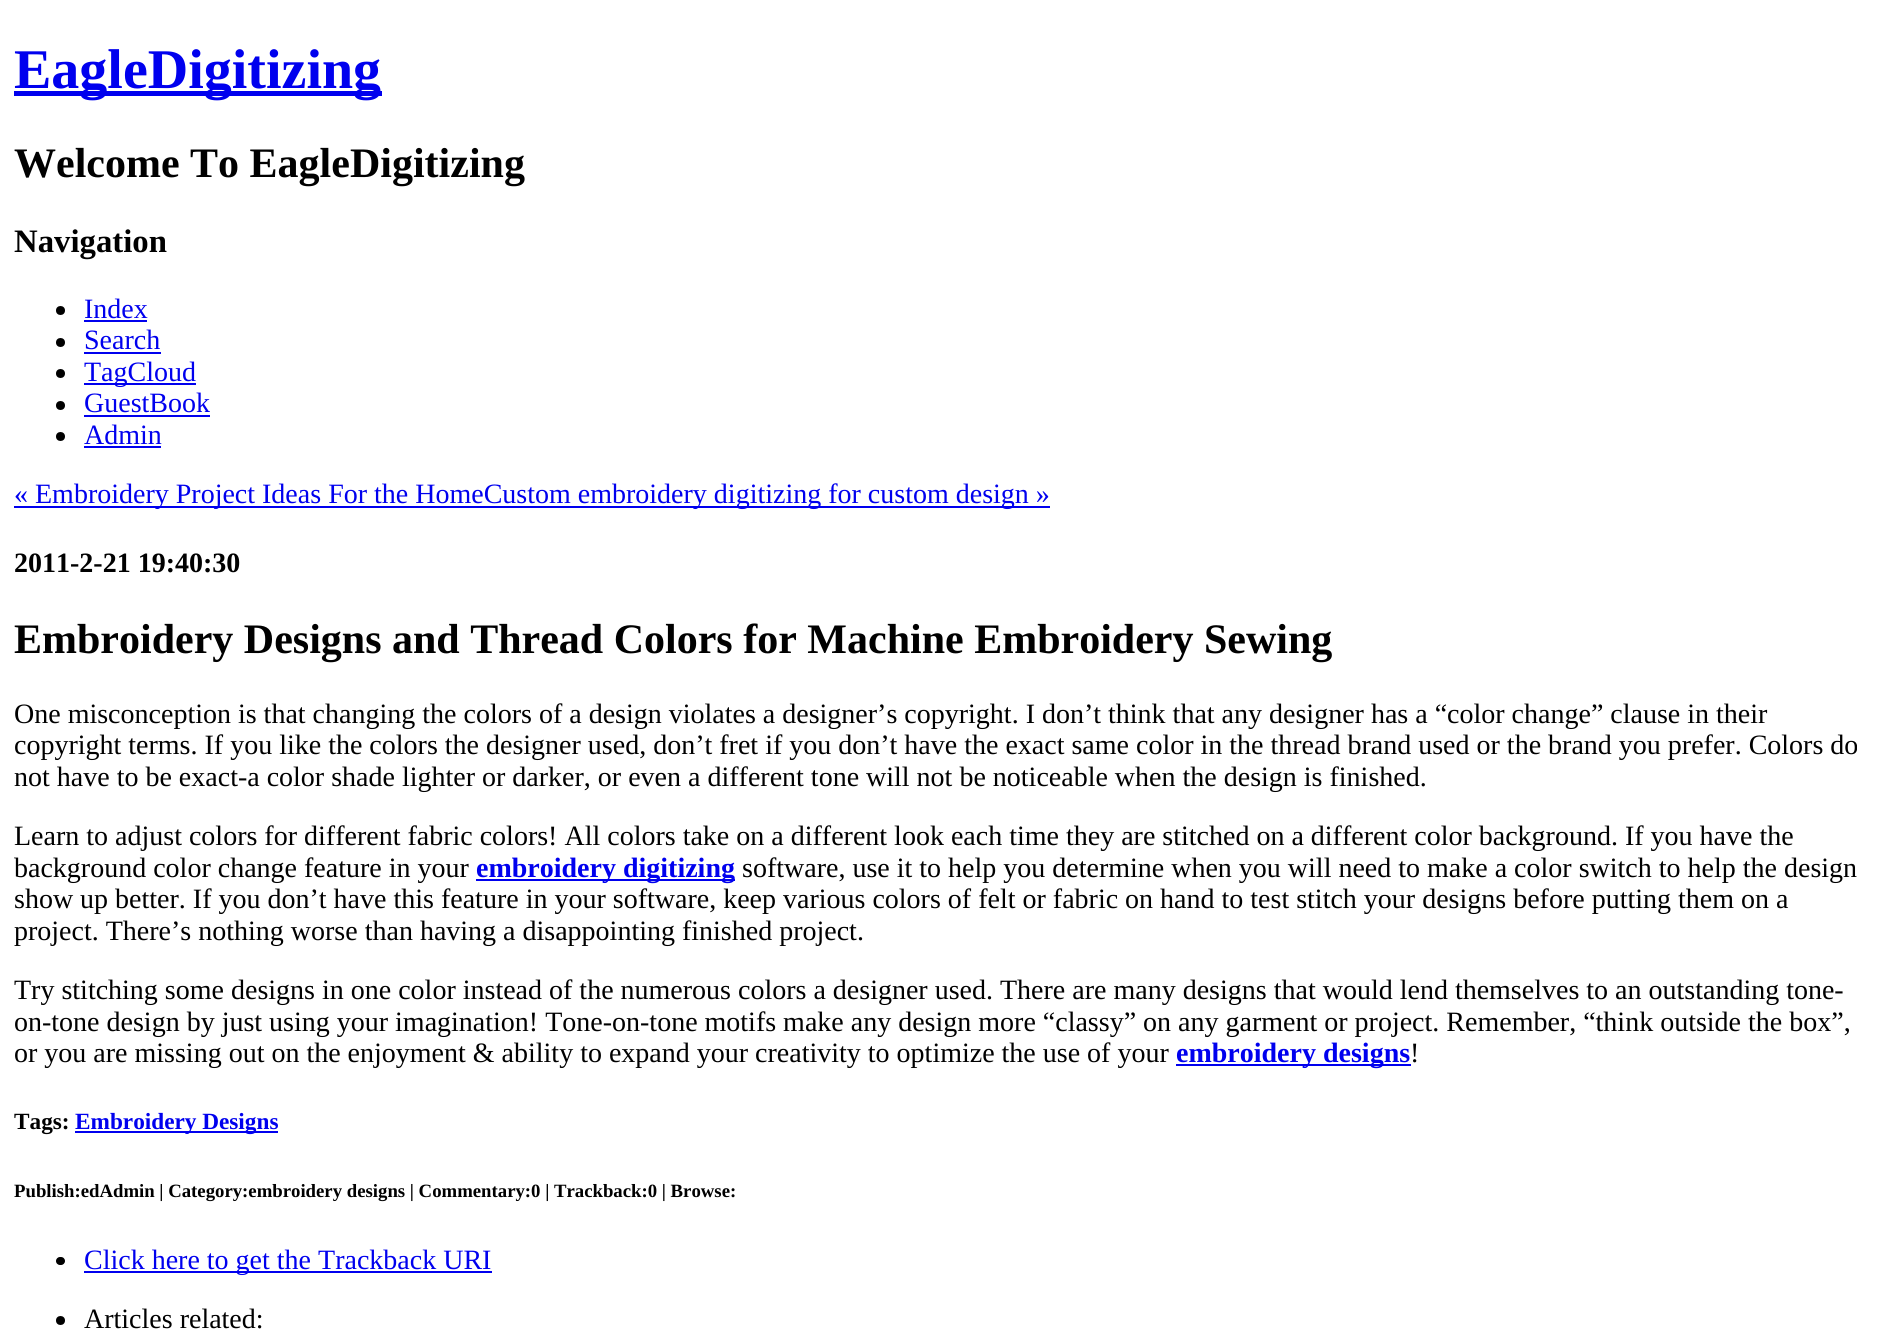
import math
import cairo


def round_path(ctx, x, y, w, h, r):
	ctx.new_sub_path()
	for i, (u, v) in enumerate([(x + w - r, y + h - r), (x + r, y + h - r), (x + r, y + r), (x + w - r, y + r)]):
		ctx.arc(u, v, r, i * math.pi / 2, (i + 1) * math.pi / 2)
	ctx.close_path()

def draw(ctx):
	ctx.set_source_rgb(1, 1, 1)
	ctx.paint()
	ctx.set_source_rgb(0, 0, 0.933)
	ctx.rectangle(14, 91, 368, 5)
	ctx.fill()
	ctx.select_font_face('Liberation Serif', cairo.FONT_SLANT_NORMAL, cairo.FONT_WEIGHT_BOLD)
	ctx.set_font_size(56)
	ctx.move_to(14, 88)
	ctx.show_text('EagleDigitizing')
	ctx.set_font_size(42)
	ctx.set_source_rgb(0, 0, 0)
	ctx.move_to(14, 177)
	ctx.show_text('Welcome To EagleDigitizing')
	ctx.set_font_size(32.75)
	ctx.move_to(14, 252)
	ctx.show_text('Navigation')
	ctx.new_path()
	ctx.arc(60.5, 310.5, 4.5, 0, 2 * math.pi)
	ctx.fill()
	ctx.select_font_face('Liberation Serif')
	ctx.set_font_size(28)
	ctx.set_source_rgb(0, 0, 0.933)
	ctx.move_to(84, 318)
	ctx.show_text('Index')
	ctx.rectangle(84, 320, 63, 2)
	ctx.fill()
	ctx.set_source_rgb(0, 0, 0)
	ctx.arc(60.5, 342.5, 4.5, 0, 2 * math.pi)
	ctx.fill()
	ctx.set_source_rgb(0, 0, 0.933)
	ctx.move_to(84, 349)
	ctx.show_text('Search')
	ctx.rectangle(84, 352, 77, 2)
	ctx.fill()
	ctx.set_source_rgb(0, 0, 0)
	ctx.arc(60.5, 373.5, 4.5, 0, 2 * math.pi)
	ctx.fill()
	ctx.set_source_rgb(0, 0, 0.933)
	ctx.rectangle(84, 383, 112, 2)
	ctx.fill()
	ctx.move_to(84, 381)
	ctx.show_text('TagCloud')
	ctx.set_source_rgb(0, 0, 0)
	ctx.new_path()
	ctx.arc(60.5, 405.5, 4.5, 0, 2 * math.pi)
	ctx.fill()
	ctx.set_source_rgb(0, 0, 0.933)
	ctx.move_to(84, 412)
	ctx.show_text('GuestBook')
	ctx.rectangle(84, 415, 126, 2)
	ctx.fill()
	ctx.set_source_rgb(0, 0, 0)
	ctx.arc(60.5, 436.5, 4.5, 0, 2 * math.pi)
	ctx.fill()
	ctx.set_source_rgb(0, 0, 0.933)
	ctx.move_to(84, 444)
	ctx.show_text('Admin')
	ctx.rectangle(84, 446, 77, 2)
	ctx.fill()
	ctx.rectangle(14, 506, 1036, 2)
	ctx.fill()
	ctx.move_to(14, 503)
	ctx.show_text('« Embroidery Project Ideas For the HomeCustom embroidery digitizing for custom design »')
	ctx.select_font_face('Liberation Serif', cairo.FONT_SLANT_NORMAL, cairo.FONT_WEIGHT_BOLD)
	ctx.set_source_rgb(0, 0, 0)
	ctx.move_to(14, 572)
	ctx.show_text('2011-2-21 19:40:30')
	ctx.set_font_size(42)
	ctx.move_to(14, 653)
	ctx.show_text('Embroidery Designs and Thread Colors for Machine Embroidery Sewing')
	ctx.select_font_face('Liberation Serif')
	ctx.set_font_size(28)
	for x, y, s in [
		(14, 723, 'One misconception is that changing the colors of a design violates a designer’s copyright. I don’t think that any designer has a “color change” clause in their'),
		(14, 754, 'copyright terms. If you like the colors the designer used, don’t fret if you don’t have the exact same color in the thread brand used or the brand you prefer. Colors do'),
		(14, 786, 'not have to be exact-a color shade lighter or darker, or even a different tone will not be noticeable when the design is finished.'),
		(14, 845, 'Learn to adjust colors for different fabric colors! All colors take on a different look each time they are stitched on a different color background. If you have the'),
		(14, 877, 'background color change feature in your'),
	]:
		ctx.move_to(x, y)
		ctx.show_text(s)
	ctx.set_source_rgb(0, 0, 0.933)
	ctx.rectangle(476, 879, 259, 2)
	ctx.fill()
	ctx.select_font_face('Liberation Serif', cairo.FONT_SLANT_NORMAL, cairo.FONT_WEIGHT_BOLD)
	ctx.move_to(476, 877)
	ctx.show_text('embroidery digitizing')
	ctx.select_font_face('Liberation Serif')
	ctx.set_source_rgb(0, 0, 0)
	for x, y, s in [
		(742, 877, 'software, use it to help you determine when you will need to make a color switch to help the design'),
		(14, 908, 'show up better. If you don’t have this feature in your software, keep various colors of felt or fabric on hand to test stitch your designs before putting them on a'),
		(14, 940, 'project. There’s nothing worse than having a disappointing finished project.'),
		(14, 999, 'Try stitching some designs in one color instead of the numerous colors a designer used. There are many designs that would lend themselves to an outstanding tone-'),
		(14, 1031, 'on-tone design by just using your imagination! Tone-on-tone motifs make any design more “classy” on any garment or project. Remember, “think outside the box”,'),
		(14, 1062, 'or you are missing out on the enjoyment & ability to expand your creativity to optimize the use of your'),
	]:
		ctx.move_to(x, y)
		ctx.show_text(s)
	ctx.set_source_rgb(0, 0, 0.933)
	ctx.rectangle(1176, 1064, 235, 2)
	ctx.fill()
	ctx.select_font_face('Liberation Serif', cairo.FONT_SLANT_NORMAL, cairo.FONT_WEIGHT_BOLD)
	ctx.move_to(1176, 1062)
	ctx.show_text('embroidery designs')
	ctx.select_font_face('Liberation Serif')
	ctx.set_source_rgb(0, 0, 0)
	ctx.move_to(1410, 1062)
	ctx.show_text('!')
	ctx.select_font_face('Liberation Serif', cairo.FONT_SLANT_NORMAL, cairo.FONT_WEIGHT_BOLD)
	ctx.set_font_size(23.25)
	ctx.move_to(14, 1129)
	ctx.show_text('Tags:')
	ctx.set_source_rgb(0, 0, 0.933)
	ctx.rectangle(75, 1131, 203, 2)
	ctx.fill()
	ctx.move_to(75, 1129)
	ctx.show_text('Embroidery Designs')
	ctx.set_font_size(18.75)
	ctx.set_source_rgb(0, 0, 0)
	ctx.move_to(14, 1197)
	ctx.show_text('Publish:edAdmin | Category:embroidery designs | Commentary:0 | Trackback:0 | Browse:')
	round_path(ctx, 56, 1257, 9, 8, 4)
	ctx.fill()
	ctx.set_source_rgb(0, 0, 0.933)
	ctx.rectangle(84, 1271, 408, 2)
	ctx.fill()
	ctx.select_font_face('Liberation Serif')
	ctx.set_font_size(28)
	ctx.move_to(84, 1269)
	ctx.show_text('Click here to get the Trackback URI')
	ctx.set_source_rgb(0, 0, 0)
	ctx.new_path()
	ctx.arc(60.5, 1320.5, 4.5, 0, 2 * math.pi)
	ctx.fill()
	ctx.move_to(84, 1328)
	ctx.show_text('Articles related:')


surface = cairo.ImageSurface(cairo.FORMAT_RGB24, 1892, 1341)
ctx = cairo.Context(surface)
options = cairo.FontOptions()
options.set_hint_metrics(cairo.HINT_METRICS_OFF)
options.set_hint_style(cairo.HINT_STYLE_NONE)
ctx.set_font_options(options)
ctx.set_miter_limit(4)
draw(ctx)
surface.write_to_png('image.png')
